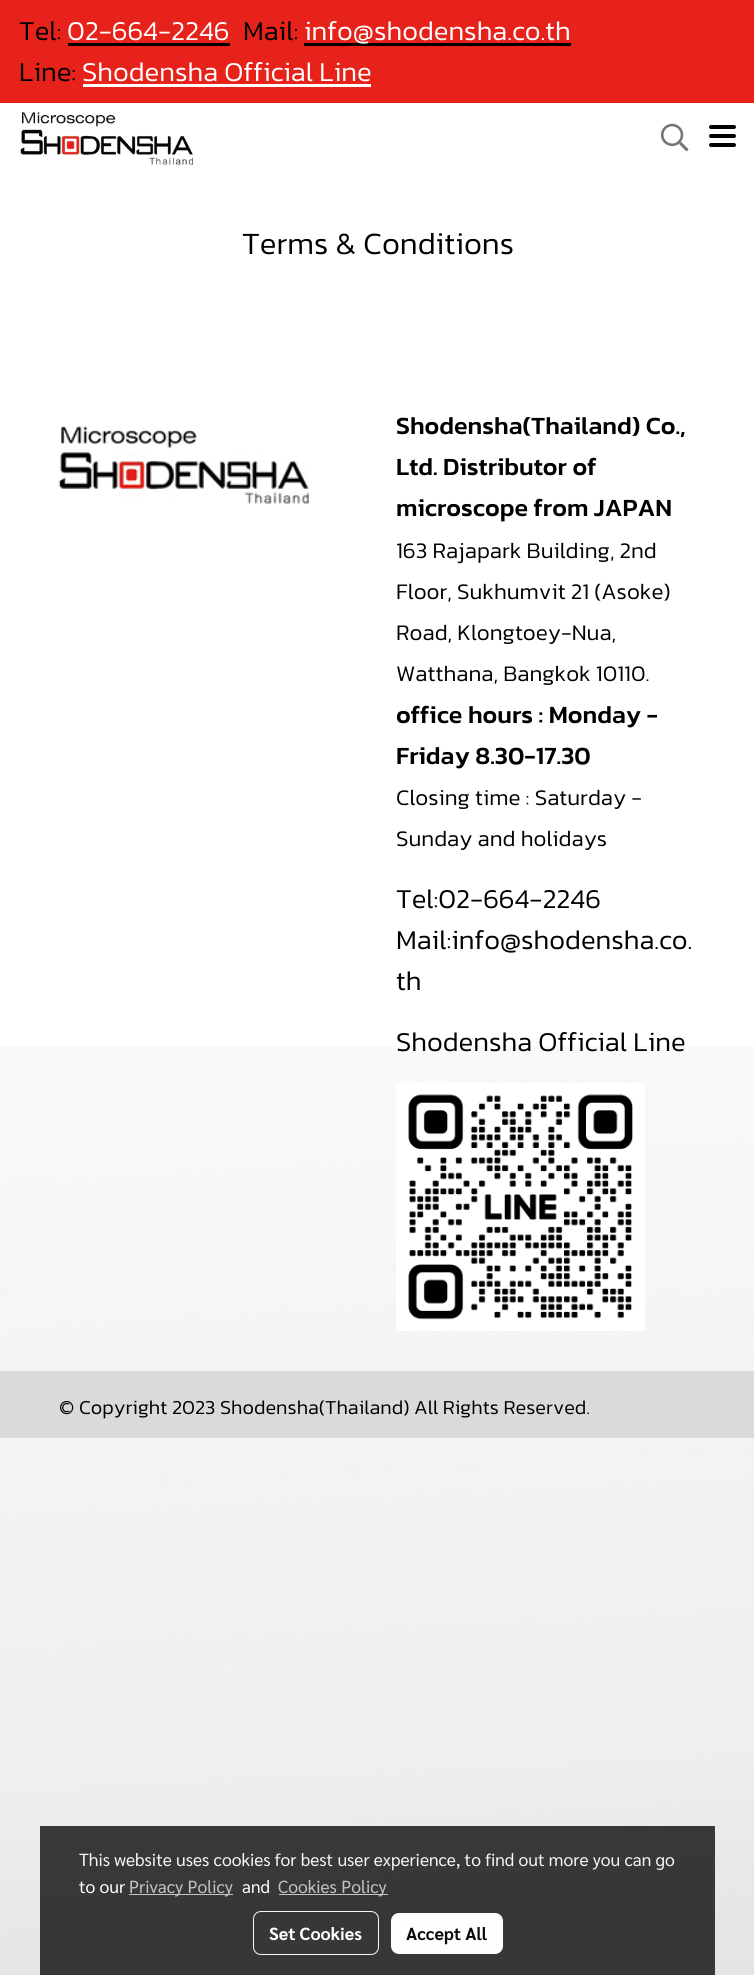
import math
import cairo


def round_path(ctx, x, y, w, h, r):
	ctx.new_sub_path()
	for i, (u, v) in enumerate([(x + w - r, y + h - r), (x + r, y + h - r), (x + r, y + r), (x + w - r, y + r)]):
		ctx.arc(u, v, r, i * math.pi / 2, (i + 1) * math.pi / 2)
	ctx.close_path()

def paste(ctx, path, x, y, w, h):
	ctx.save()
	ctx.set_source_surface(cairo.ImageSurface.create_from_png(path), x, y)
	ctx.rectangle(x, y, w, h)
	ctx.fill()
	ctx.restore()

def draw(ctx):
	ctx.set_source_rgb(1, 1, 1)
	ctx.paint()
	paste(ctx, 'media/1.png', 0, 1046, 754, 929)
	ctx.set_source_rgb(0.906, 0.133, 0.102)
	ctx.rectangle(0, 0, 754, 103)
	ctx.fill()
	ctx.select_font_face('Kanit Light')
	ctx.set_font_size(27.5)
	ctx.set_source_rgb(0, 0, 0)
	ctx.move_to(19, 40)
	ctx.show_text('Tel:')
	ctx.set_source_rgb(1, 1, 1)
	ctx.move_to(67, 40)
	ctx.show_text('02-664-2246')
	ctx.set_source_rgb(0, 0, 0)
	ctx.rectangle(68, 43, 162, 3)
	ctx.fill()
	ctx.move_to(243, 40)
	ctx.show_text('Mail:')
	ctx.rectangle(304, 43, 267, 3)
	ctx.fill()
	ctx.set_source_rgb(1, 1, 1)
	ctx.move_to(304, 40)
	ctx.show_text('info@shodensha.co.th')
	ctx.set_source_rgb(0, 0, 0)
	ctx.move_to(19, 81)
	ctx.show_text('Line:')
	ctx.set_source_rgb(1, 1, 1)
	ctx.move_to(82, 81)
	ctx.show_text('Shodensha Official Line')
	ctx.rectangle(83, 84, 288, 3)
	ctx.fill()
	paste(ctx, 'media/2.png', 20, 112, 173, 53)
	paste(ctx, 'media/3.png', 661, 123, 28, 29)
	ctx.set_source_rgb(0, 0, 0)
	round_path(ctx, 709, 134, 27, 4, 2)
	ctx.fill()
	round_path(ctx, 709, 125, 27, 4, 2)
	ctx.fill()
	round_path(ctx, 709, 143, 27, 4, 2)
	ctx.fill()
	ctx.set_font_size(31.25)
	ctx.move_to(242, 254)
	ctx.show_text('Terms & Conditions')
	paste(ctx, 'media/4.png', 58, 426, 251, 78)
	ctx.select_font_face('Kanit Medium')
	ctx.set_font_size(25)
	for x, y, s in [
		(396, 434, 'Shodensha(Thailand) Co.,'),
		(396, 475, 'Ltd. Distributor of'),
		(396, 516, 'microscope from JAPAN'),
	]:
		ctx.move_to(x, y)
		ctx.show_text(s)
	ctx.select_font_face('Kanit Light')
	ctx.set_font_size(22.5)
	for x, y, s in [
		(396, 558, '163 Rajapark Building, 2nd'),
		(396, 599, 'Floor, Sukhumvit 21 (Asoke)'),
		(396, 640, 'Road, Klongtoey-Nua,'),
		(396, 681, 'Watthana, Bangkok 10110.'),
	]:
		ctx.move_to(x, y)
		ctx.show_text(s)
	ctx.select_font_face('Kanit Medium')
	ctx.set_font_size(25)
	ctx.move_to(396, 723)
	ctx.show_text('office hours : Monday -')
	ctx.move_to(396, 764)
	ctx.show_text('Friday 8.30-17.30')
	ctx.select_font_face('Kanit Light')
	ctx.set_font_size(22.5)
	ctx.move_to(396, 805)
	ctx.show_text('Closing time : Saturday -')
	ctx.move_to(396, 846)
	ctx.show_text('Sunday and holidays')
	ctx.set_font_size(27.5)
	for x, y, s in [
		(396, 908, 'Tel:02-664-2246'),
		(396, 949, 'Mail:info@shodensha.co.'),
		(396, 990, 'th'),
		(396, 1051, 'Shodensha Official Line'),
	]:
		ctx.move_to(x, y)
		ctx.show_text(s)
	paste(ctx, 'media/5.png', 396, 1083, 249, 248)
	ctx.set_source_rgb(0.855, 0.855, 0.855)
	ctx.rectangle(0, 1371, 754, 67)
	ctx.fill()
	ctx.set_font_size(20)
	ctx.set_source_rgb(0, 0, 0)
	ctx.move_to(59, 1414)
	ctx.show_text('© Copyright 2023 Shodensha(Thailand) All Rights Reserved.')
	ctx.set_source_rgba(0, 0, 0, 0.76)
	ctx.rectangle(40, 1826, 675, 149)
	ctx.fill()
	ctx.select_font_face('Sarabun')
	ctx.set_font_size(17.5)
	ctx.set_source_rgb(0.961, 0.961, 0.961)
	ctx.move_to(79, 1866)
	ctx.show_text('This website uses cookies for best user experience, to find out more you can go')
	ctx.set_source_rgb(1, 1, 1)
	ctx.move_to(79, 1893)
	ctx.show_text('to our')
	ctx.set_source_rgb(0.769, 0.769, 0.769)
	ctx.rectangle(129, 1894, 104, 1)
	ctx.fill()
	ctx.move_to(129, 1893)
	ctx.show_text('Privacy Policy')
	ctx.set_source_rgb(1, 1, 1)
	ctx.move_to(242, 1893)
	ctx.show_text('and')
	ctx.set_source_rgb(0.769, 0.769, 0.769)
	ctx.rectangle(279, 1894, 109, 1)
	ctx.fill()
	ctx.move_to(278, 1893)
	ctx.show_text('Cookies Policy')
	round_path(ctx, 253.5, 1911.5, 125, 43, 7.5)
	ctx.set_source_rgb(0.961, 0.961, 0.961)
	ctx.set_line_width(1)
	ctx.stroke()
	ctx.select_font_face('Sarabun', cairo.FONT_SLANT_NORMAL, cairo.FONT_WEIGHT_BOLD)
	ctx.set_source_rgb(1, 1, 1)
	ctx.move_to(269, 1940)
	ctx.show_text('Set Cookies')
	ctx.set_source_rgb(0.996, 0.996, 0.996)
	round_path(ctx, 391, 1913, 112, 41, 8)
	ctx.fill()
	ctx.set_source_rgb(0.043, 0.047, 0.047)
	ctx.move_to(406, 1940)
	ctx.show_text('Accept All')


surface = cairo.ImageSurface(cairo.FORMAT_RGB24, 754, 1975)
ctx = cairo.Context(surface)
options = cairo.FontOptions()
options.set_hint_metrics(cairo.HINT_METRICS_OFF)
options.set_hint_style(cairo.HINT_STYLE_NONE)
ctx.set_font_options(options)
ctx.set_miter_limit(4)
draw(ctx)
surface.write_to_png('image.png')
